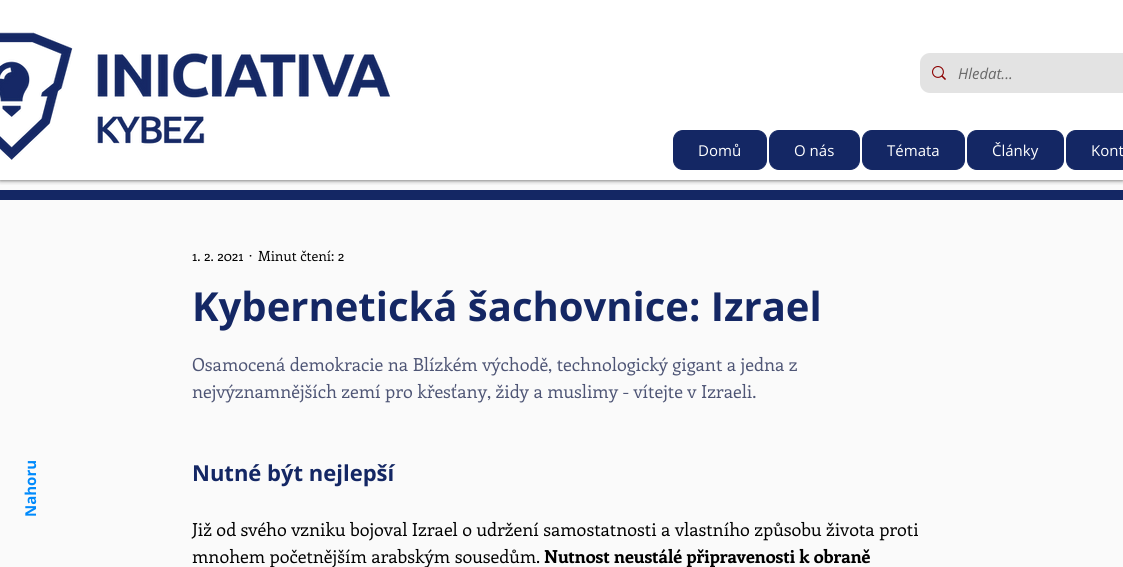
import math
import cairo


def round_path(ctx, x, y, w, h, r):
	ctx.new_sub_path()
	for i, (u, v) in enumerate([(x + w - r, y + h - r), (x + r, y + h - r), (x + r, y + r), (x + w - r, y + r)]):
		ctx.arc(u, v, r, i * math.pi / 2, (i + 1) * math.pi / 2)
	ctx.close_path()

def blur_box(ctx, x, y, w, h, r, blur, alpha):
	ctx.push_group_with_content(cairo.CONTENT_ALPHA)
	ctx.set_operator(cairo.OPERATOR_SOURCE)
	for i in range(15, -16, -2):
		e = blur * i / 6
		if min(w, h) + 2 * e > 0:
			ctx.set_source_rgba(0, 0, 0, alpha * math.erfc((i - 1) / 8.5) / 2)
			round_path(ctx, x - e, y - e, w + 2 * e, h + 2 * e, max(0, min(r + e + blur * .6, min(w, h) / 2 + e)))
			ctx.fill()
	ctx.mask(ctx.pop_group())

def paste(ctx, path, x, y, w, h):
	ctx.save()
	ctx.set_source_surface(cairo.ImageSurface.create_from_png(path), x, y)
	ctx.rectangle(x, y, w, h)
	ctx.fill()
	ctx.restore()

def draw(ctx):
	ctx.set_source_rgb(1, 1, 1)
	ctx.paint()
	ctx.set_source_rgb(0.98, 0.98, 0.98)
	ctx.rectangle(0, 180, 1123, 387)
	ctx.fill()
	ctx.save()
	ctx.rectangle(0, 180, 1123, 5)
	ctx.clip()
	ctx.set_source_rgb(0, 0, 0)
	blur_box(ctx, 0, 0, 1123, 180, 0, 2.5, 0.7)
	ctx.restore()
	paste(ctx, 'media/1.png', 0, 31, 391, 129)
	ctx.set_source_rgb(0.89, 0.89, 0.89)
	round_path(ctx, 920, 53, 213, 40, 10)
	ctx.fill()
	paste(ctx, 'media/2.png', 932, 66, 14, 14)
	ctx.select_font_face('Open Sans', cairo.FONT_SLANT_ITALIC)
	ctx.set_font_size(15)
	ctx.set_source_rgb(0.412, 0.412, 0.412)
	ctx.move_to(958, 79)
	ctx.show_text('Hledat...')
	ctx.set_source_rgb(0.082, 0.153, 0.392)
	round_path(ctx, 673.5, 130.5, 93, 39, 9.5)
	ctx.fill_preserve()
	ctx.set_line_width(1)
	ctx.stroke()
	ctx.select_font_face('Open Sans')
	ctx.set_source_rgb(1, 1, 1)
	ctx.move_to(698, 156)
	ctx.show_text('Domů')
	ctx.set_source_rgb(0.082, 0.153, 0.392)
	round_path(ctx, 769.5, 130.5, 90, 39, 9.5)
	ctx.fill_preserve()
	ctx.stroke()
	ctx.set_source_rgb(1, 1, 1)
	ctx.move_to(794, 156)
	ctx.show_text('O nás')
	ctx.set_source_rgb(0.082, 0.153, 0.392)
	round_path(ctx, 862.5, 130.5, 102, 39, 9.5)
	ctx.fill_preserve()
	ctx.stroke()
	ctx.set_source_rgb(1, 1, 1)
	ctx.move_to(887, 156)
	ctx.show_text('Témata')
	ctx.set_source_rgb(0.082, 0.153, 0.392)
	round_path(ctx, 967.5, 130.5, 96, 39, 9.5)
	ctx.fill_preserve()
	ctx.stroke()
	ctx.set_source_rgb(1, 1, 1)
	ctx.move_to(992, 156)
	ctx.show_text('Články')
	ctx.set_source_rgb(0.082, 0.153, 0.392)
	round_path(ctx, 1066.5, 130.5, 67, 39, 9.5)
	ctx.fill_preserve()
	ctx.stroke()
	ctx.set_source_rgb(1, 1, 1)
	ctx.move_to(1091, 156)
	ctx.show_text('Kont')
	ctx.select_font_face('Open Sans', cairo.FONT_SLANT_NORMAL, cairo.FONT_WEIGHT_BOLD)
	ctx.set_source_rgb(0, 0.541, 0.988)
	ctx.save()
	ctx.translate(36, 517)
	ctx.rotate(-90 * math.pi / 180)
	ctx.move_to(0, 0)
	ctx.show_text('Nahoru')
	ctx.restore()
	ctx.set_source_rgb(0.082, 0.153, 0.392)
	ctx.rectangle(0, 190, 1123, 10)
	ctx.fill()
	ctx.select_font_face('Enriqueta')
	ctx.set_font_size(14)
	ctx.set_source_rgb(0, 0, 0)
	for x, y, s in [
		(192, 261, '1. 2. 2021'),
		(249, 261, '·'),
		(258, 261, 'Minut čtení: 2'),
	]:
		ctx.move_to(x, y)
		ctx.show_text(s)
	ctx.select_font_face('Open Sans', cairo.FONT_SLANT_NORMAL, cairo.FONT_WEIGHT_BOLD)
	ctx.set_font_size(40)
	ctx.set_source_rgb(0.082, 0.153, 0.392)
	ctx.move_to(192, 321)
	ctx.show_text('Kybernetická šachovnice: Izrael')
	ctx.select_font_face('Enriqueta')
	ctx.set_font_size(18)
	ctx.set_source_rgb(0.306, 0.333, 0.459)
	ctx.move_to(192, 371)
	ctx.show_text('Osamocená demokracie na Blízkém východě, technologický gigant a jedna z')
	ctx.move_to(192, 398)
	ctx.show_text('nejvýznamnějších zemí pro křesťany, židy a muslimy - vítejte v Izraeli.')
	ctx.select_font_face('Open Sans', cairo.FONT_SLANT_NORMAL, cairo.FONT_WEIGHT_BOLD)
	ctx.set_font_size(22)
	ctx.set_source_rgb(0.082, 0.153, 0.392)
	ctx.move_to(192, 481)
	ctx.show_text('Nutné být nejlepší')
	ctx.select_font_face('Enriqueta')
	ctx.set_font_size(18)
	ctx.set_source_rgb(0, 0, 0)
	ctx.move_to(192, 536)
	ctx.show_text('Již od svého vzniku bojoval Izrael o udržení samostatnosti a vlastního způsobu života proti')
	ctx.move_to(192, 563)
	ctx.show_text('mnohem početnějším arabským sousedům.')
	ctx.select_font_face('Enriqueta', cairo.FONT_SLANT_NORMAL, cairo.FONT_WEIGHT_BOLD)
	ctx.move_to(544, 563)
	ctx.show_text('Nutnost neustálé připravenosti k obraně')


surface = cairo.ImageSurface(cairo.FORMAT_RGB24, 1123, 567)
ctx = cairo.Context(surface)
options = cairo.FontOptions()
options.set_hint_metrics(cairo.HINT_METRICS_OFF)
options.set_hint_style(cairo.HINT_STYLE_NONE)
ctx.set_font_options(options)
ctx.set_miter_limit(4)
draw(ctx)
surface.write_to_png('image.png')
